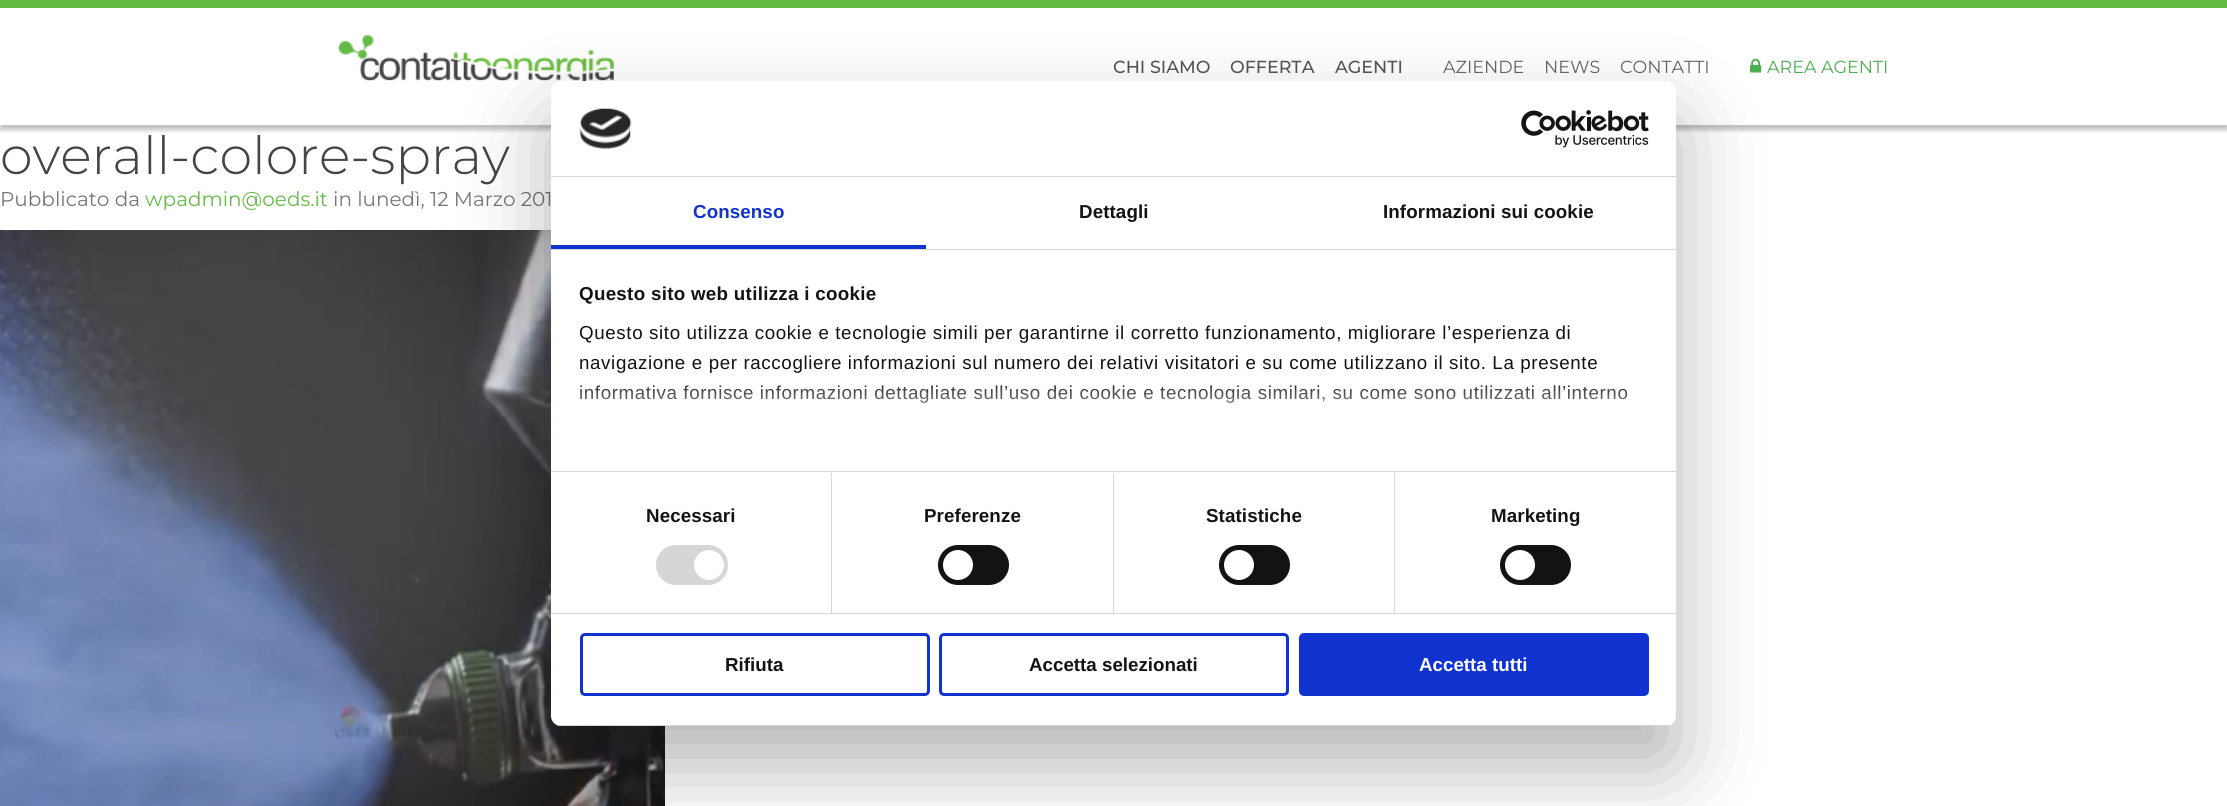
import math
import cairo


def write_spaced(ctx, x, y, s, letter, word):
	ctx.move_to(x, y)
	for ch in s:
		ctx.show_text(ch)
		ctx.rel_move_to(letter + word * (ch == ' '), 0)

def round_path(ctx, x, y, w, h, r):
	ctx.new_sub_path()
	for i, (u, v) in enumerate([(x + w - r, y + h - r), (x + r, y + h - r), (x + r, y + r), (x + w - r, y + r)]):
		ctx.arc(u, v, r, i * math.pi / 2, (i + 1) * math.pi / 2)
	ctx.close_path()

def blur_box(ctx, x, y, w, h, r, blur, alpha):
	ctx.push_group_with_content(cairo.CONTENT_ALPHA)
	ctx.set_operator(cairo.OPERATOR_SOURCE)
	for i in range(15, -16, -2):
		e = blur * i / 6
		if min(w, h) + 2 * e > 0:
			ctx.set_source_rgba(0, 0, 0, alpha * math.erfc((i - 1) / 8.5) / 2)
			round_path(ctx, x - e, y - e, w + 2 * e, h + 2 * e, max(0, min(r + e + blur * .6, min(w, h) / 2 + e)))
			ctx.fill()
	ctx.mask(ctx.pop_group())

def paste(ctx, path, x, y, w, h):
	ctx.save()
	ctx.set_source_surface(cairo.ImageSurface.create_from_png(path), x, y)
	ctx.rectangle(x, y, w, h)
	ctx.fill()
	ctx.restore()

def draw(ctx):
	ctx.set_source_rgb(1, 1, 1)
	ctx.paint()
	ctx.set_source_rgb(0.392, 0.733, 0.275)
	ctx.rectangle(0, 0, 2227, 8)
	ctx.fill()
	ctx.save()
	ctx.rectangle(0, 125, 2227, 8)
	ctx.clip()
	ctx.set_source_rgb(0, 0, 0)
	blur_box(ctx, 0, 13, 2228, 117, 0, 2.5, 0.25)
	ctx.restore()
	paste(ctx, 'media/1.png', 338, 34, 276, 48)
	ctx.select_font_face('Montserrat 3 Thin')
	ctx.set_font_size(17.5)
	ctx.set_source_rgb(0.333, 0.333, 0.333)
	for x, y, s in [
		(1113, 73, 'CHI SIAMO'),
		(1230, 73, 'OFFERTA'),
		(1335, 73, 'AGENTI'),
	]:
		ctx.move_to(x, y)
		ctx.show_text(s)
	ctx.select_font_face('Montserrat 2 Thin')
	ctx.set_source_rgb(0.4, 0.4, 0.4)
	for x, y, s in [
		(1443, 73, 'AZIENDE'),
		(1544, 73, 'NEWS'),
		(1620, 73, 'CONTATTI'),
	]:
		ctx.move_to(x, y)
		ctx.show_text(s)
	paste(ctx, 'media/2.png', 1750, 58, 12, 15)
	ctx.set_source_rgb(0.298, 0.686, 0.314)
	ctx.move_to(1767, 73)
	ctx.show_text('AREA AGENTI')
	ctx.select_font_face('Montserrat Thin')
	ctx.set_font_size(52.5)
	ctx.set_source_rgb(0.267, 0.267, 0.267)
	ctx.move_to(0, 174)
	ctx.show_text('overall-colore-spray')
	ctx.select_font_face('Montserrat 2 Thin')
	ctx.set_font_size(20)
	ctx.set_source_rgb(0.467, 0.467, 0.467)
	ctx.move_to(0, 206)
	ctx.show_text('Pubblicato da')
	ctx.set_source_rgb(0.392, 0.733, 0.275)
	ctx.move_to(145, 206)
	ctx.show_text('wpadmin@oeds.it')
	ctx.set_source_rgb(0.467, 0.467, 0.467)
	ctx.move_to(333, 206)
	ctx.show_text('in lunedì, 12 Marzo 201')
	paste(ctx, 'media/3.png', 0, 230, 665, 576)
	ctx.set_source_rgb(0, 0, 0)
	blur_box(ctx, 551, 121, 1125, 645, 10, 42.5, 0.3)
	ctx.set_source_rgb(1, 1, 1)
	round_path(ctx, 551, 81, 1125, 645, 10)
	ctx.fill()
	ctx.set_source_rgb(0.839, 0.839, 0.839)
	ctx.rectangle(551, 176, 1125, 1)
	ctx.fill()
	paste(ctx, 'media/4.png', 579, 108, 53, 41)
	paste(ctx, 'media/5.png', 1521, 110, 128, 38)
	ctx.rectangle(551, 249, 1125, 1)
	ctx.fill()
	ctx.set_source_rgb(0.063, 0.196, 0.812)
	ctx.rectangle(551, 245, 375, 4)
	ctx.fill()
	ctx.select_font_face('Liberation Sans', cairo.FONT_SLANT_NORMAL, cairo.FONT_WEIGHT_BOLD)
	ctx.set_font_size(18.75)
	write_spaced(ctx, 693, 218, 'Consenso', 0.1, 0)
	ctx.set_source_rgb(0.078, 0.078, 0.078)
	write_spaced(ctx, 1079, 218, 'Dettagli', 0.1, 0)
	write_spaced(ctx, 1383, 218, 'Informazioni sui cookie', 0.1, 0)
	ctx.set_source_rgb(0.839, 0.839, 0.839)
	ctx.rectangle(551, 471, 1125, 1)
	ctx.fill()
	ctx.set_source_rgb(0.078, 0.078, 0.078)
	write_spaced(ctx, 579, 300, 'Questo sito web utilizza i cookie', 0.3, 0)
	ctx.select_font_face('Liberation Sans')
	for x, y, s in [
		(579, 339, 'Questo sito utilizza cookie e tecnologie simili per garantirne il corretto funzionamento, migliorare l’esperienza di'),
		(579, 369, 'navigazione e per raccogliere informazioni sul numero dei relativi visitatori e su come utilizzano il sito. La presente'),
		(579, 399, 'informativa fornisce informazioni dettagliate sull’uso dei cookie e tecnologia similari, su come sono utilizzati all’interno'),
	]:
		write_spaced(ctx, x, y, s, 0.62, 0)
	gradient = cairo.LinearGradient(1101, 471, 1101, 378)
	gradient.add_color_stop_rgba(0, 1, 1, 1, 1)
	gradient.add_color_stop_rgba(0.5, 1, 1, 1, 0.8)
	gradient.add_color_stop_rgba(1, 1, 1, 1, 0)
	ctx.set_source(gradient)
	ctx.rectangle(580, 385, 1048, 18)
	ctx.fill()
	ctx.set_source_rgb(0.839, 0.839, 0.839)
	ctx.rectangle(551, 613, 1125, 1)
	ctx.fill()
	ctx.rectangle(831, 473, 1, 140)
	ctx.fill()
	ctx.select_font_face('Liberation Sans', cairo.FONT_SLANT_NORMAL, cairo.FONT_WEIGHT_BOLD)
	ctx.set_source_rgb(0.078, 0.078, 0.078)
	write_spaced(ctx, 646, 522, 'Necessari', 0.1, 0)
	ctx.set_source_rgb(0.839, 0.839, 0.839)
	round_path(ctx, 656, 545, 72, 40, 20)
	ctx.fill()
	ctx.set_source_rgb(1, 1, 1)
	ctx.arc(709, 565, 15, 0, 2 * math.pi)
	ctx.fill()
	ctx.set_source_rgb(0.839, 0.839, 0.839)
	ctx.rectangle(1113, 473, 1, 140)
	ctx.fill()
	ctx.set_source_rgb(0.078, 0.078, 0.078)
	write_spaced(ctx, 924, 522, 'Preferenze', 0.1, 0)
	round_path(ctx, 938, 545, 71, 40, 20)
	ctx.fill()
	ctx.set_source_rgb(1, 1, 1)
	ctx.arc(958, 565, 15, 0, 2 * math.pi)
	ctx.fill()
	ctx.set_source_rgb(0.839, 0.839, 0.839)
	ctx.rectangle(1394, 473, 1, 140)
	ctx.fill()
	ctx.set_source_rgb(0.078, 0.078, 0.078)
	write_spaced(ctx, 1206, 522, 'Statistiche', 0.1, 0)
	round_path(ctx, 1219, 545, 71, 40, 20)
	ctx.fill()
	ctx.set_source_rgb(1, 1, 1)
	ctx.arc(1239, 565, 15, 0, 2 * math.pi)
	ctx.fill()
	ctx.set_source_rgb(0.078, 0.078, 0.078)
	write_spaced(ctx, 1491, 522, 'Marketing', 0.1, 0)
	round_path(ctx, 1500, 545, 71, 40, 20)
	ctx.fill()
	ctx.set_source_rgb(1, 1, 1)
	ctx.arc(1520, 565, 15, 0, 2 * math.pi)
	ctx.fill()
	ctx.save()
	round_path(ctx, 551, 81, 1125, 645, 10)
	ctx.clip()
	ctx.set_source_rgb(0.839, 0.839, 0.839)
	ctx.rectangle(551, 725, 1125, 1)
	ctx.fill()
	ctx.restore()
	round_path(ctx, 581.5, 634.5, 347, 60, 3.5)
	ctx.set_source_rgb(0.063, 0.196, 0.812)
	ctx.set_line_width(3)
	ctx.stroke()
	ctx.set_source_rgb(0.078, 0.078, 0.078)
	ctx.move_to(725, 671)
	ctx.show_text('Rifiuta')
	round_path(ctx, 940.5, 634.5, 347, 60, 3.5)
	ctx.set_source_rgb(0.063, 0.196, 0.812)
	ctx.stroke()
	ctx.set_source_rgb(0.078, 0.078, 0.078)
	ctx.move_to(1029, 671)
	ctx.show_text('Accetta selezionati')
	ctx.set_source_rgb(0.063, 0.196, 0.812)
	round_path(ctx, 1300.5, 634.5, 347, 60, 3.5)
	ctx.fill_preserve()
	ctx.stroke()
	ctx.set_source_rgb(1, 1, 1)
	ctx.move_to(1419, 671)
	ctx.show_text('Accetta tutti')


surface = cairo.ImageSurface(cairo.FORMAT_RGB24, 2227, 806)
ctx = cairo.Context(surface)
options = cairo.FontOptions()
options.set_hint_metrics(cairo.HINT_METRICS_OFF)
options.set_hint_style(cairo.HINT_STYLE_NONE)
ctx.set_font_options(options)
ctx.set_miter_limit(4)
draw(ctx)
surface.write_to_png('image.png')
